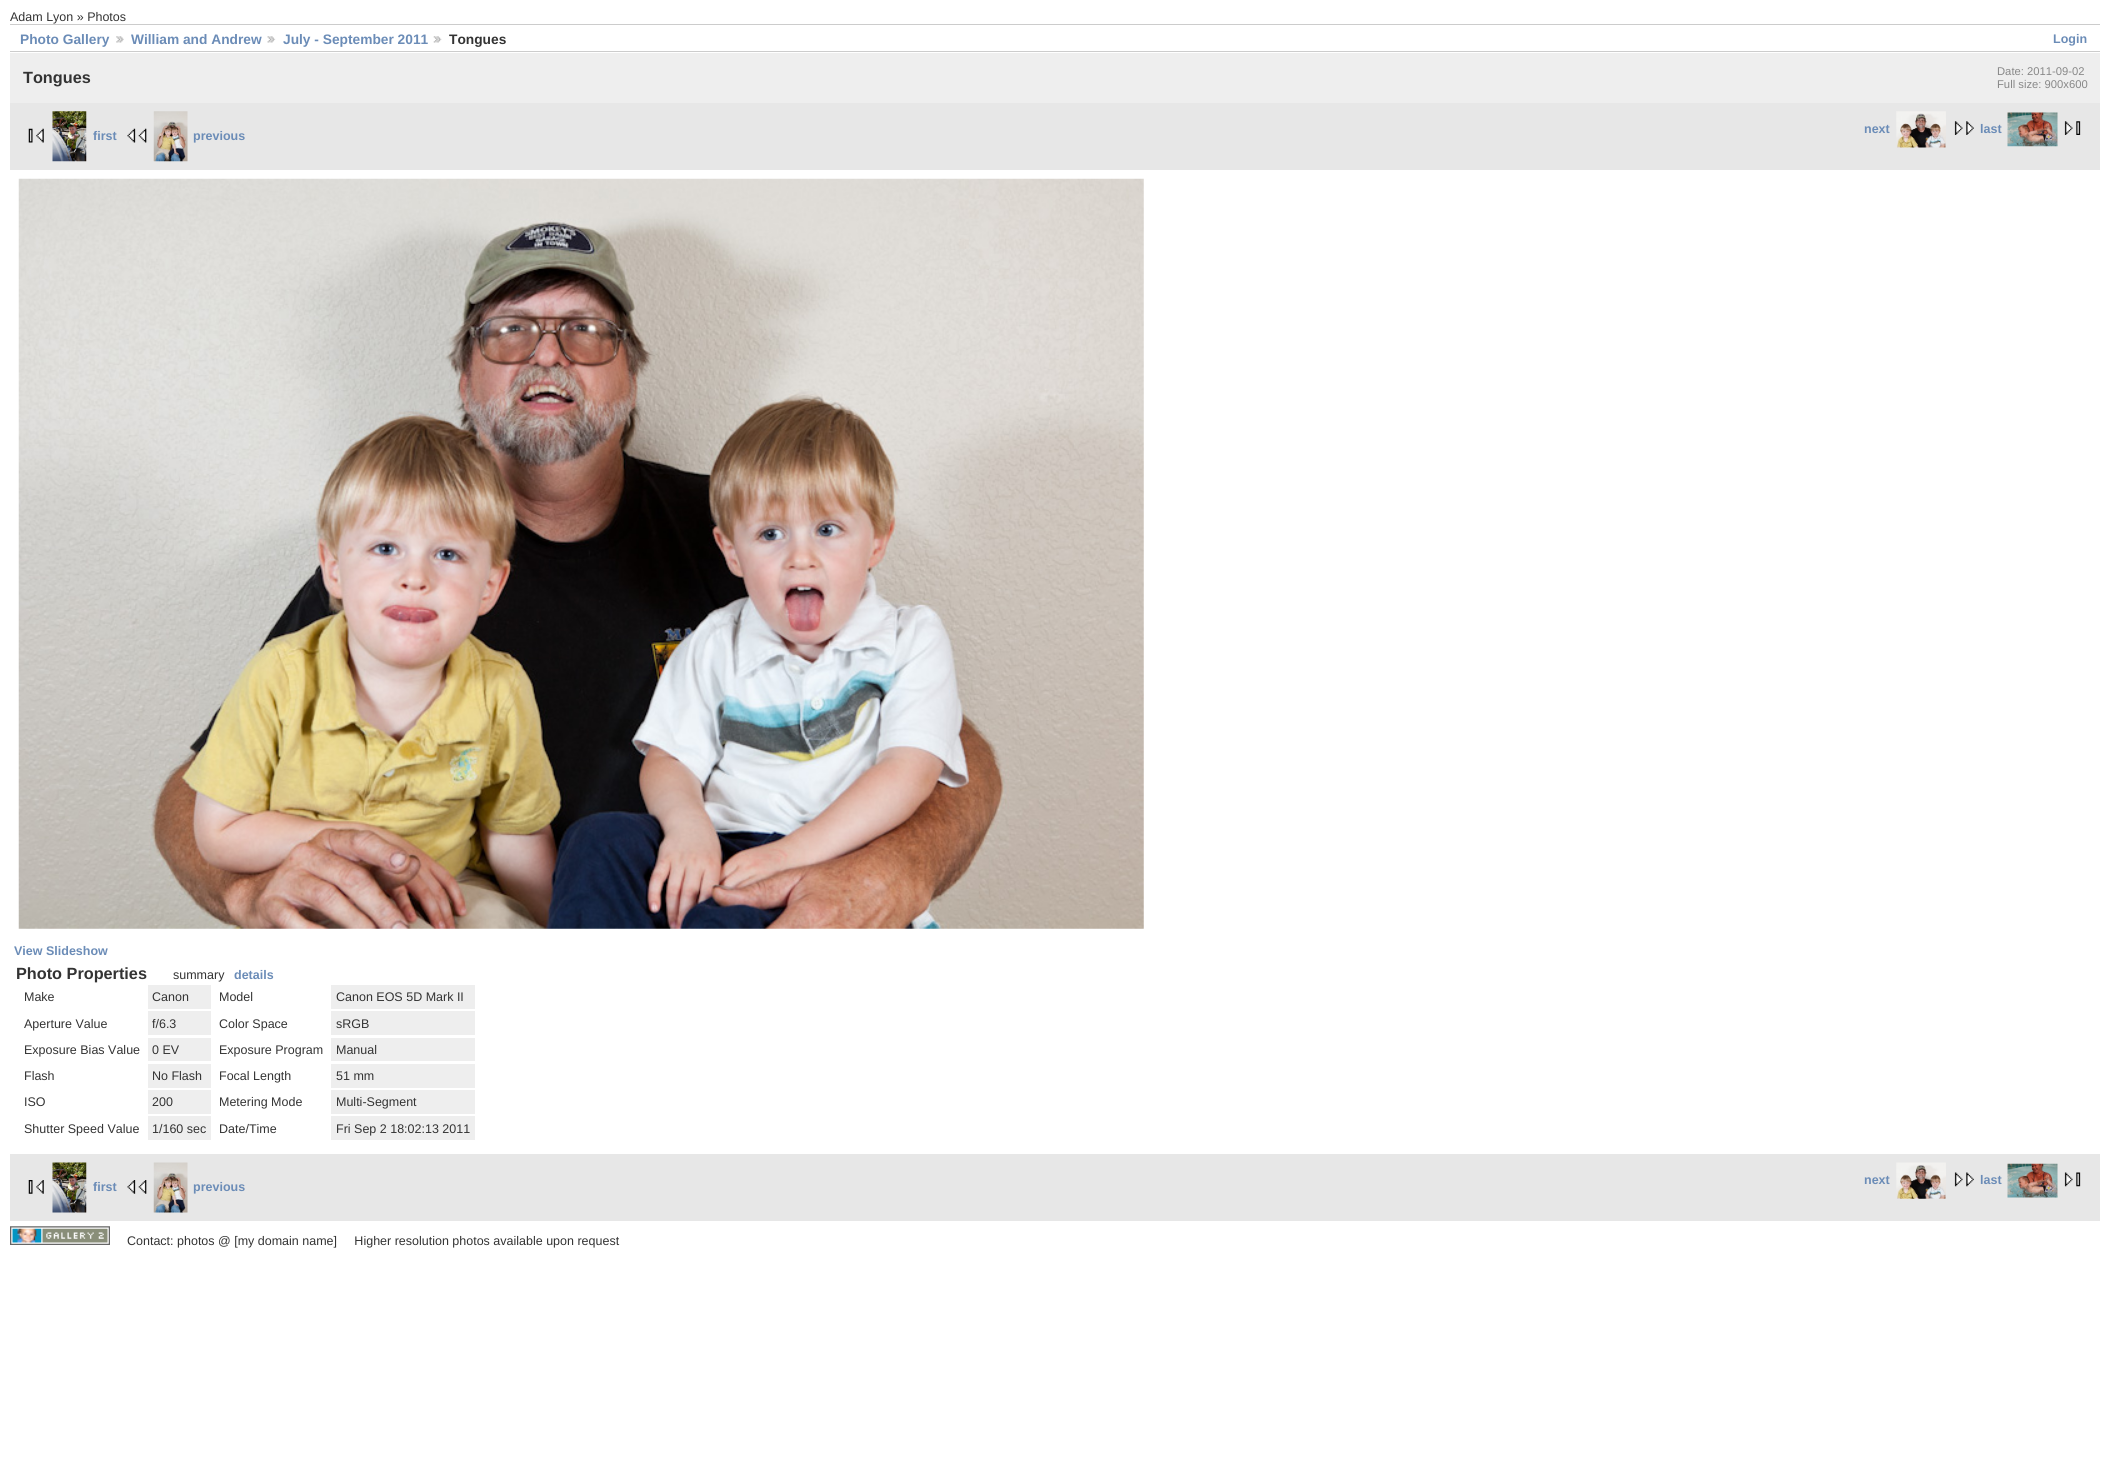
import math
import cairo


def paste(ctx, path, x, y, w, h):
	ctx.save()
	ctx.set_source_surface(cairo.ImageSurface.create_from_png(path), x, y)
	ctx.rectangle(x, y, w, h)
	ctx.fill()
	ctx.restore()

def draw(ctx):
	ctx.set_source_rgb(1, 1, 1)
	ctx.paint()
	ctx.select_font_face('Liberation Sans')
	ctx.set_font_size(12.5)
	ctx.set_source_rgb(0.2, 0.2, 0.2)
	ctx.move_to(10, 21)
	ctx.show_text('Adam Lyon » Photos')
	ctx.set_source_rgb(0.8, 0.8, 0.8)
	ctx.rectangle(10, 24, 2090, 1)
	ctx.fill()
	ctx.rectangle(10, 51, 2090, 1)
	ctx.fill()
	ctx.select_font_face('Liberation Sans', cairo.FONT_SLANT_NORMAL, cairo.FONT_WEIGHT_BOLD)
	ctx.set_font_size(13.75)
	ctx.set_source_rgb(0.42, 0.549, 0.718)
	ctx.move_to(20, 44)
	ctx.show_text('Photo Gallery')
	paste(ctx, 'media/1.png', 116, 36, 8, 7)
	ctx.move_to(131, 44)
	ctx.show_text('William and Andrew')
	paste(ctx, 'media/2.png', 267, 36, 9, 7)
	ctx.move_to(283, 44)
	ctx.show_text('July - September 2011')
	paste(ctx, 'media/3.png', 433, 36, 9, 7)
	ctx.set_source_rgb(0.2, 0.2, 0.2)
	ctx.move_to(449, 44)
	ctx.show_text('Tongues')
	ctx.set_font_size(12.5)
	ctx.set_source_rgb(0.42, 0.549, 0.718)
	ctx.move_to(2053, 43)
	ctx.show_text('Login')
	ctx.set_source_rgb(0.933, 0.933, 0.933)
	ctx.rectangle(10, 53, 2090, 50)
	ctx.fill()
	ctx.set_font_size(16.25)
	ctx.set_source_rgb(0.2, 0.2, 0.2)
	ctx.move_to(23, 83)
	ctx.show_text('Tongues')
	ctx.select_font_face('Liberation Sans')
	ctx.set_font_size(11.25)
	ctx.set_source_rgb(0.533, 0.533, 0.533)
	ctx.move_to(1997, 75)
	ctx.show_text('Date: 2011-09-02')
	ctx.move_to(1997, 88)
	ctx.show_text('Full size: 900x600')
	ctx.set_source_rgb(0.906, 0.906, 0.906)
	ctx.rectangle(10, 103, 2090, 67)
	ctx.fill()
	ctx.select_font_face('Liberation Sans', cairo.FONT_SLANT_NORMAL, cairo.FONT_WEIGHT_BOLD)
	ctx.set_font_size(12.5)
	ctx.set_source_rgb(0.42, 0.549, 0.718)
	ctx.move_to(1864, 133)
	ctx.show_text('next')
	paste(ctx, 'media/4.png', 1896, 111, 50, 37)
	paste(ctx, 'media/5.png', 1954, 121, 20, 14)
	ctx.move_to(1980, 133)
	ctx.show_text('last')
	paste(ctx, 'media/6.png', 2007, 112, 51, 35)
	paste(ctx, 'media/7.png', 2064, 121, 17, 14)
	paste(ctx, 'media/8.png', 28, 128, 16, 15)
	paste(ctx, 'media/9.png', 52, 111, 35, 51)
	ctx.move_to(93, 140)
	ctx.show_text('first')
	paste(ctx, 'media/10.png', 127, 128, 20, 15)
	paste(ctx, 'media/11.png', 153, 111, 35, 51)
	ctx.move_to(193, 140)
	ctx.show_text('previous')
	paste(ctx, 'media/12.png', 18, 178, 1126, 751)
	ctx.move_to(14, 955)
	ctx.show_text('View Slideshow')
	ctx.set_font_size(16.25)
	ctx.set_source_rgb(0.2, 0.2, 0.2)
	ctx.move_to(16, 979)
	ctx.show_text('Photo Properties')
	ctx.select_font_face('Liberation Sans')
	ctx.set_font_size(12.5)
	ctx.move_to(173, 979)
	ctx.show_text('summary')
	ctx.select_font_face('Liberation Sans', cairo.FONT_SLANT_NORMAL, cairo.FONT_WEIGHT_BOLD)
	ctx.set_source_rgb(0.42, 0.549, 0.718)
	ctx.move_to(234, 979)
	ctx.show_text('details')
	ctx.select_font_face('Liberation Sans')
	ctx.set_source_rgb(0.2, 0.2, 0.2)
	ctx.move_to(24, 1001)
	ctx.show_text('Make')
	ctx.set_source_rgb(0.933, 0.933, 0.933)
	ctx.rectangle(148, 985, 63, 24)
	ctx.fill()
	ctx.set_source_rgb(0.2, 0.2, 0.2)
	ctx.move_to(152, 1001)
	ctx.show_text('Canon')
	ctx.move_to(219, 1001)
	ctx.show_text('Model')
	ctx.set_source_rgb(0.933, 0.933, 0.933)
	ctx.rectangle(331, 985, 144, 24)
	ctx.fill()
	ctx.set_source_rgb(0.2, 0.2, 0.2)
	ctx.move_to(336, 1001)
	ctx.show_text('Canon EOS 5D Mark II')
	ctx.move_to(24, 1028)
	ctx.show_text('Aperture Value')
	ctx.set_source_rgb(0.933, 0.933, 0.933)
	ctx.rectangle(148, 1011, 63, 24)
	ctx.fill()
	ctx.set_source_rgb(0.2, 0.2, 0.2)
	ctx.move_to(152, 1028)
	ctx.show_text('f/6.3')
	ctx.move_to(219, 1028)
	ctx.show_text('Color Space')
	ctx.set_source_rgb(0.933, 0.933, 0.933)
	ctx.rectangle(331, 1011, 144, 24)
	ctx.fill()
	ctx.set_source_rgb(0.2, 0.2, 0.2)
	ctx.move_to(336, 1028)
	ctx.show_text('sRGB')
	ctx.move_to(24, 1054)
	ctx.show_text('Exposure Bias Value')
	ctx.set_source_rgb(0.933, 0.933, 0.933)
	ctx.rectangle(148, 1038, 63, 23)
	ctx.fill()
	ctx.set_source_rgb(0.2, 0.2, 0.2)
	ctx.move_to(152, 1054)
	ctx.show_text('0 EV')
	ctx.move_to(219, 1054)
	ctx.show_text('Exposure Program')
	ctx.set_source_rgb(0.933, 0.933, 0.933)
	ctx.rectangle(331, 1038, 144, 23)
	ctx.fill()
	ctx.set_source_rgb(0.2, 0.2, 0.2)
	ctx.move_to(336, 1054)
	ctx.show_text('Manual')
	ctx.move_to(24, 1080)
	ctx.show_text('Flash')
	ctx.set_source_rgb(0.933, 0.933, 0.933)
	ctx.rectangle(148, 1064, 63, 24)
	ctx.fill()
	ctx.set_source_rgb(0.2, 0.2, 0.2)
	ctx.move_to(152, 1080)
	ctx.show_text('No Flash')
	ctx.move_to(219, 1080)
	ctx.show_text('Focal Length')
	ctx.set_source_rgb(0.933, 0.933, 0.933)
	ctx.rectangle(331, 1064, 144, 24)
	ctx.fill()
	ctx.set_source_rgb(0.2, 0.2, 0.2)
	ctx.move_to(336, 1080)
	ctx.show_text('51 mm')
	ctx.move_to(24, 1106)
	ctx.show_text('ISO')
	ctx.set_source_rgb(0.933, 0.933, 0.933)
	ctx.rectangle(148, 1090, 63, 24)
	ctx.fill()
	ctx.set_source_rgb(0.2, 0.2, 0.2)
	ctx.move_to(152, 1106)
	ctx.show_text('200')
	ctx.move_to(219, 1106)
	ctx.show_text('Metering Mode')
	ctx.set_source_rgb(0.933, 0.933, 0.933)
	ctx.rectangle(331, 1090, 144, 24)
	ctx.fill()
	ctx.set_source_rgb(0.2, 0.2, 0.2)
	ctx.move_to(336, 1106)
	ctx.show_text('Multi-Segment')
	ctx.move_to(24, 1133)
	ctx.show_text('Shutter Speed Value')
	ctx.set_source_rgb(0.933, 0.933, 0.933)
	ctx.rectangle(148, 1116, 63, 24)
	ctx.fill()
	ctx.set_source_rgb(0.2, 0.2, 0.2)
	ctx.move_to(152, 1133)
	ctx.show_text('1/160 sec')
	ctx.move_to(219, 1133)
	ctx.show_text('Date/Time')
	ctx.set_source_rgb(0.933, 0.933, 0.933)
	ctx.rectangle(331, 1116, 144, 24)
	ctx.fill()
	ctx.set_source_rgb(0.2, 0.2, 0.2)
	ctx.move_to(336, 1133)
	ctx.show_text('Fri Sep 2 18:02:13 2011')
	ctx.set_source_rgb(0.906, 0.906, 0.906)
	ctx.rectangle(10, 1154, 2090, 67)
	ctx.fill()
	ctx.select_font_face('Liberation Sans', cairo.FONT_SLANT_NORMAL, cairo.FONT_WEIGHT_BOLD)
	ctx.set_source_rgb(0.42, 0.549, 0.718)
	ctx.move_to(1864, 1184)
	ctx.show_text('next')
	paste(ctx, 'media/13.png', 1896, 1162, 50, 37)
	paste(ctx, 'media/14.png', 1954, 1172, 20, 15)
	ctx.move_to(1980, 1184)
	ctx.show_text('last')
	paste(ctx, 'media/15.png', 2007, 1163, 51, 35)
	paste(ctx, 'media/16.png', 2064, 1172, 17, 15)
	paste(ctx, 'media/17.png', 28, 1180, 16, 14)
	paste(ctx, 'media/18.png', 52, 1162, 35, 51)
	ctx.move_to(93, 1191)
	ctx.show_text('first')
	paste(ctx, 'media/19.png', 127, 1180, 20, 14)
	paste(ctx, 'media/20.png', 153, 1162, 35, 51)
	ctx.move_to(193, 1191)
	ctx.show_text('previous')
	paste(ctx, 'media/21.png', 10, 1226, 100, 19)
	ctx.select_font_face('Liberation Sans')
	ctx.set_source_rgb(0.2, 0.2, 0.2)
	ctx.move_to(127, 1245)
	ctx.show_text('Contact: photos @ [my domain name]     Higher resolution photos available upon request')


surface = cairo.ImageSurface(cairo.FORMAT_RGB24, 2110, 1481)
ctx = cairo.Context(surface)
options = cairo.FontOptions()
options.set_hint_metrics(cairo.HINT_METRICS_OFF)
options.set_hint_style(cairo.HINT_STYLE_NONE)
ctx.set_font_options(options)
ctx.set_miter_limit(4)
draw(ctx)
surface.write_to_png('image.png')
